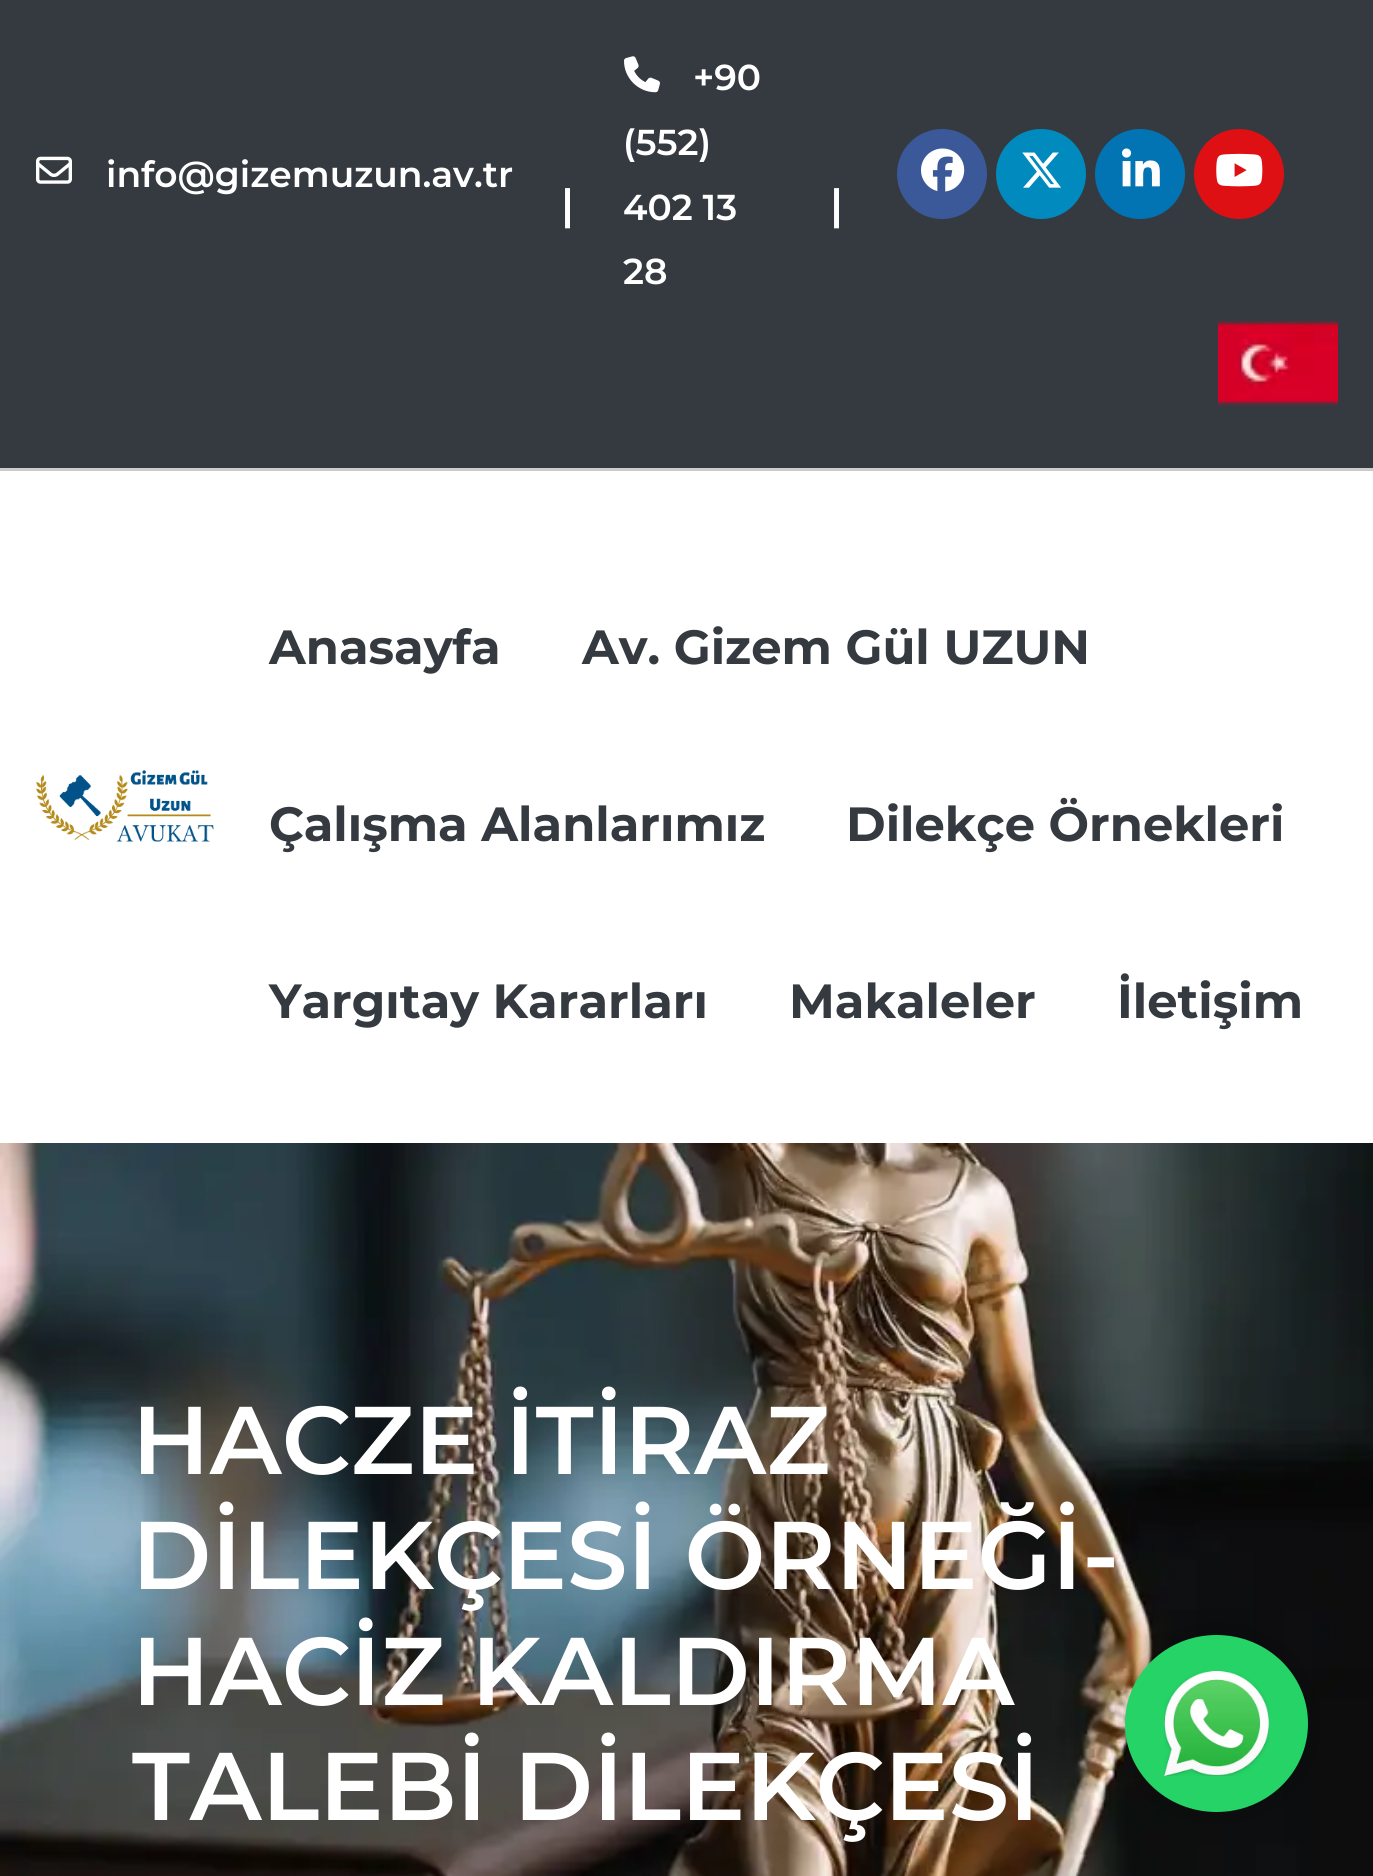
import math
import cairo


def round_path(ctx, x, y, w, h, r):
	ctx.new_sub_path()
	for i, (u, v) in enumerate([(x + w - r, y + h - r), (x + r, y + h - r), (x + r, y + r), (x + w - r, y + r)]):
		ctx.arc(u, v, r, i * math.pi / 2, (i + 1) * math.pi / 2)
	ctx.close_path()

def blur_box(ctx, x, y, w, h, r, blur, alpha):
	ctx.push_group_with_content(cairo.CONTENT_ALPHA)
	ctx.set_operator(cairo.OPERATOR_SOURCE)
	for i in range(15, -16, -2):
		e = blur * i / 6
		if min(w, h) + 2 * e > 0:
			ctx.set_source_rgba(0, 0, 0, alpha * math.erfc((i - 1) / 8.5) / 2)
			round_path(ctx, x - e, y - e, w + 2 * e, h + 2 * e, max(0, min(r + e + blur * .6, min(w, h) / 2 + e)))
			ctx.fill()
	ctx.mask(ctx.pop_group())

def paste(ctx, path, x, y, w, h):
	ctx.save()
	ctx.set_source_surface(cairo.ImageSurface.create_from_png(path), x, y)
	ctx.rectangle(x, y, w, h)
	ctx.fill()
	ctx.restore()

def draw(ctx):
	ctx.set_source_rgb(1, 1, 1)
	ctx.paint()
	ctx.set_source_rgb(0.204, 0.227, 0.251)
	ctx.rectangle(0, 0, 1373, 468)
	ctx.fill()
	ctx.set_source_rgb(0.8, 0.8, 0.8)
	ctx.rectangle(0, 468, 1373, 3)
	ctx.fill()
	paste(ctx, 'media/1.png', 36, 156, 36, 28)
	ctx.select_font_face('Montserrat SemiBold')
	ctx.set_font_size(36)
	ctx.set_source_rgb(1, 1, 1)
	ctx.move_to(106, 187)
	ctx.show_text('info@gizemuzun.av.tr')
	paste(ctx, 'media/2.png', 624, 56, 36, 37)
	for x, y, s in [
		(693, 90, '+90'),
		(623, 155, '(552)'),
		(623, 220, '402 13'),
		(623, 284, '28'),
	]:
		ctx.move_to(x, y)
		ctx.show_text(s)
	ctx.set_source_rgb(0.231, 0.349, 0.596)
	ctx.new_path()
	ctx.arc(942, 174, 45, 0, 2 * math.pi)
	ctx.fill()
	paste(ctx, 'media/3.png', 921, 148, 44, 44)
	ctx.set_source_rgb(0, 0.541, 0.745)
	ctx.arc(1041, 174, 45, 0, 2 * math.pi)
	ctx.fill()
	paste(ctx, 'media/4.png', 1022, 152, 39, 36)
	ctx.set_source_rgb(0.008, 0.455, 0.702)
	ctx.arc(1140, 174, 45, 0, 2 * math.pi)
	ctx.fill()
	paste(ctx, 'media/5.png', 1122, 148, 38, 39)
	ctx.set_source_rgb(0.871, 0.063, 0.075)
	ctx.arc(1239, 174, 45, 0, 2 * math.pi)
	ctx.fill()
	paste(ctx, 'media/6.png', 1216, 153, 47, 34)
	ctx.set_font_size(43)
	ctx.set_source_rgb(1, 1, 1)
	ctx.move_to(561, 220)
	ctx.show_text('|')
	ctx.move_to(830, 220)
	ctx.show_text('|')
	paste(ctx, 'media/7.png', 1218, 320, 120, 86)
	paste(ctx, 'media/8.png', 36, 770, 178, 72)
	ctx.select_font_face('Montserrat', cairo.FONT_SLANT_NORMAL, cairo.FONT_WEIGHT_BOLD)
	ctx.set_font_size(48)
	ctx.set_source_rgb(0.204, 0.227, 0.251)
	for x, y, s in [
		(269, 664, 'Anasayfa'),
		(582, 664, 'Av. Gizem Gül UZUN'),
		(269, 841, 'Çalışma Alanlarımız'),
		(846, 841, 'Dilekçe Örnekleri'),
		(269, 1018, 'Yargıtay Kararları'),
		(789, 1018, 'Makaleler'),
		(1117, 1018, 'İletişim'),
	]:
		ctx.move_to(x, y)
		ctx.show_text(s)
	paste(ctx, 'media/9.png', 0, 1143, 1373, 733)
	ctx.select_font_face('Montserrat SemiBold')
	ctx.set_font_size(96)
	ctx.set_source_rgb(1, 1, 1)
	for x, y, s in [
		(132, 1474, 'HACZE İTİRAZ'),
		(132, 1589, 'DİLEKÇESİ ÖRNEĞİ-'),
		(132, 1705, 'HACİZ KALDIRMA'),
		(132, 1820, 'TALEBİ DİLEKÇESİ'),
	]:
		ctx.move_to(x, y)
		ctx.show_text(s)
	ctx.set_source_rgb(0, 0, 0)
	blur_box(ctx, 1125, 1635, 183, 177, 88.5, 15, 0.2)
	ctx.set_source_rgb(0.145, 0.827, 0.4)
	ctx.new_path()
	ctx.move_to(1216.5, 1635)
	ctx.curve_to(1267, 1635, 1308, 1674.5, 1308, 1723.5)
	ctx.curve_to(1308, 1772.5, 1267, 1812, 1216.5, 1812)
	ctx.curve_to(1166, 1812, 1125, 1772.5, 1125, 1723.5)
	ctx.curve_to(1125, 1674.5, 1166, 1635, 1216.5, 1635)
	ctx.close_path()
	ctx.fill()
	paste(ctx, 'media/10.png', 1164, 1671, 105, 105)


surface = cairo.ImageSurface(cairo.FORMAT_RGB24, 1373, 1876)
ctx = cairo.Context(surface)
options = cairo.FontOptions()
options.set_hint_metrics(cairo.HINT_METRICS_OFF)
options.set_hint_style(cairo.HINT_STYLE_NONE)
ctx.set_font_options(options)
ctx.set_miter_limit(4)
draw(ctx)
surface.write_to_png('image.png')
